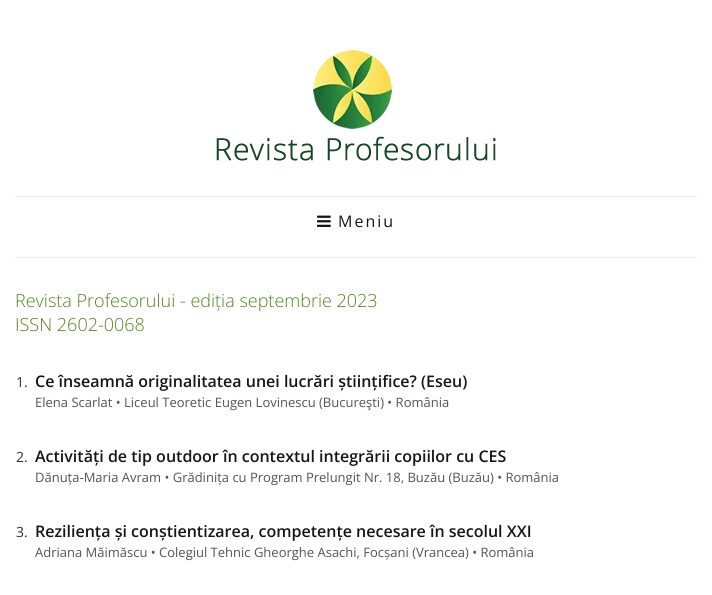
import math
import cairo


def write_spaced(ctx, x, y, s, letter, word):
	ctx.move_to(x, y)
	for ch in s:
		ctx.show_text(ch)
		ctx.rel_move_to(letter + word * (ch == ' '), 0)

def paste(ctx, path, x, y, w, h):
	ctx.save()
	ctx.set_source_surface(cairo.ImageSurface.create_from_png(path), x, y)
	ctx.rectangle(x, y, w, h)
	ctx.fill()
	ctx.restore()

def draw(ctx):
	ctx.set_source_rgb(1, 1, 1)
	ctx.paint()
	paste(ctx, 'media/1.png', 216, 50, 280, 111)
	ctx.set_source_rgb(0.922, 0.922, 0.922)
	ctx.rectangle(15, 196, 682, 1)
	ctx.fill()
	ctx.rectangle(15, 257, 682, 1)
	ctx.fill()
	paste(ctx, 'media/2.png', 317, 215, 14, 12)
	ctx.select_font_face('Open Sans')
	ctx.set_font_size(16)
	ctx.set_source_rgb(0.086, 0.086, 0.086)
	write_spaced(ctx, 338, 227, 'Meniu', 2, 0)
	ctx.select_font_face('Open Sans Light')
	ctx.set_font_size(18)
	ctx.set_source_rgb(0.333, 0.51, 0.098)
	ctx.move_to(15, 307)
	ctx.show_text('Revista Profesorului - ediția septembrie 2023')
	ctx.move_to(15, 331)
	ctx.show_text('ISSN 2602-0068')
	ctx.select_font_face('Open Sans')
	ctx.set_font_size(14)
	ctx.set_source_rgb(0.2, 0.2, 0.2)
	ctx.move_to(16, 387)
	ctx.show_text('1.')
	ctx.select_font_face('Open Sans SemiBold')
	ctx.set_font_size(16)
	ctx.set_source_rgb(0.086, 0.086, 0.086)
	ctx.move_to(35, 387)
	ctx.show_text('Ce înseamnă originalitatea unei lucrări științifice? (Eseu)')
	ctx.select_font_face('Open Sans')
	ctx.set_font_size(13)
	ctx.set_source_rgb(0.329, 0.329, 0.329)
	ctx.move_to(35, 407)
	ctx.show_text('Elena Scarlat • Liceul Teoretic Eugen Lovinescu (Bucureşti) • România')
	ctx.set_font_size(14)
	ctx.set_source_rgb(0.2, 0.2, 0.2)
	ctx.move_to(16, 462)
	ctx.show_text('2.')
	ctx.select_font_face('Open Sans SemiBold')
	ctx.set_font_size(16)
	ctx.set_source_rgb(0.086, 0.086, 0.086)
	ctx.move_to(35, 462)
	ctx.show_text('Activități de tip outdoor în contextul integrării copiilor cu CES')
	ctx.select_font_face('Open Sans')
	ctx.set_font_size(13)
	ctx.set_source_rgb(0.329, 0.329, 0.329)
	ctx.move_to(35, 482)
	ctx.show_text('Dănuța-Maria Avram • Grădinița cu Program Prelungit Nr. 18, Buzău (Buzău) • România')
	ctx.set_font_size(14)
	ctx.set_source_rgb(0.2, 0.2, 0.2)
	ctx.move_to(16, 537)
	ctx.show_text('3.')
	ctx.select_font_face('Open Sans SemiBold')
	ctx.set_font_size(16)
	ctx.set_source_rgb(0.086, 0.086, 0.086)
	ctx.move_to(35, 537)
	ctx.show_text('Reziliența și conștientizarea, competențe necesare în secolul XXI')
	ctx.select_font_face('Open Sans')
	ctx.set_font_size(13)
	ctx.set_source_rgb(0.329, 0.329, 0.329)
	ctx.move_to(35, 557)
	ctx.show_text('Adriana Măimăscu • Colegiul Tehnic Gheorghe Asachi, Focșani (Vrancea) • România')


surface = cairo.ImageSurface(cairo.FORMAT_RGB24, 712, 595)
ctx = cairo.Context(surface)
options = cairo.FontOptions()
options.set_hint_metrics(cairo.HINT_METRICS_OFF)
options.set_hint_style(cairo.HINT_STYLE_NONE)
ctx.set_font_options(options)
ctx.set_miter_limit(4)
draw(ctx)
surface.write_to_png('image.png')
